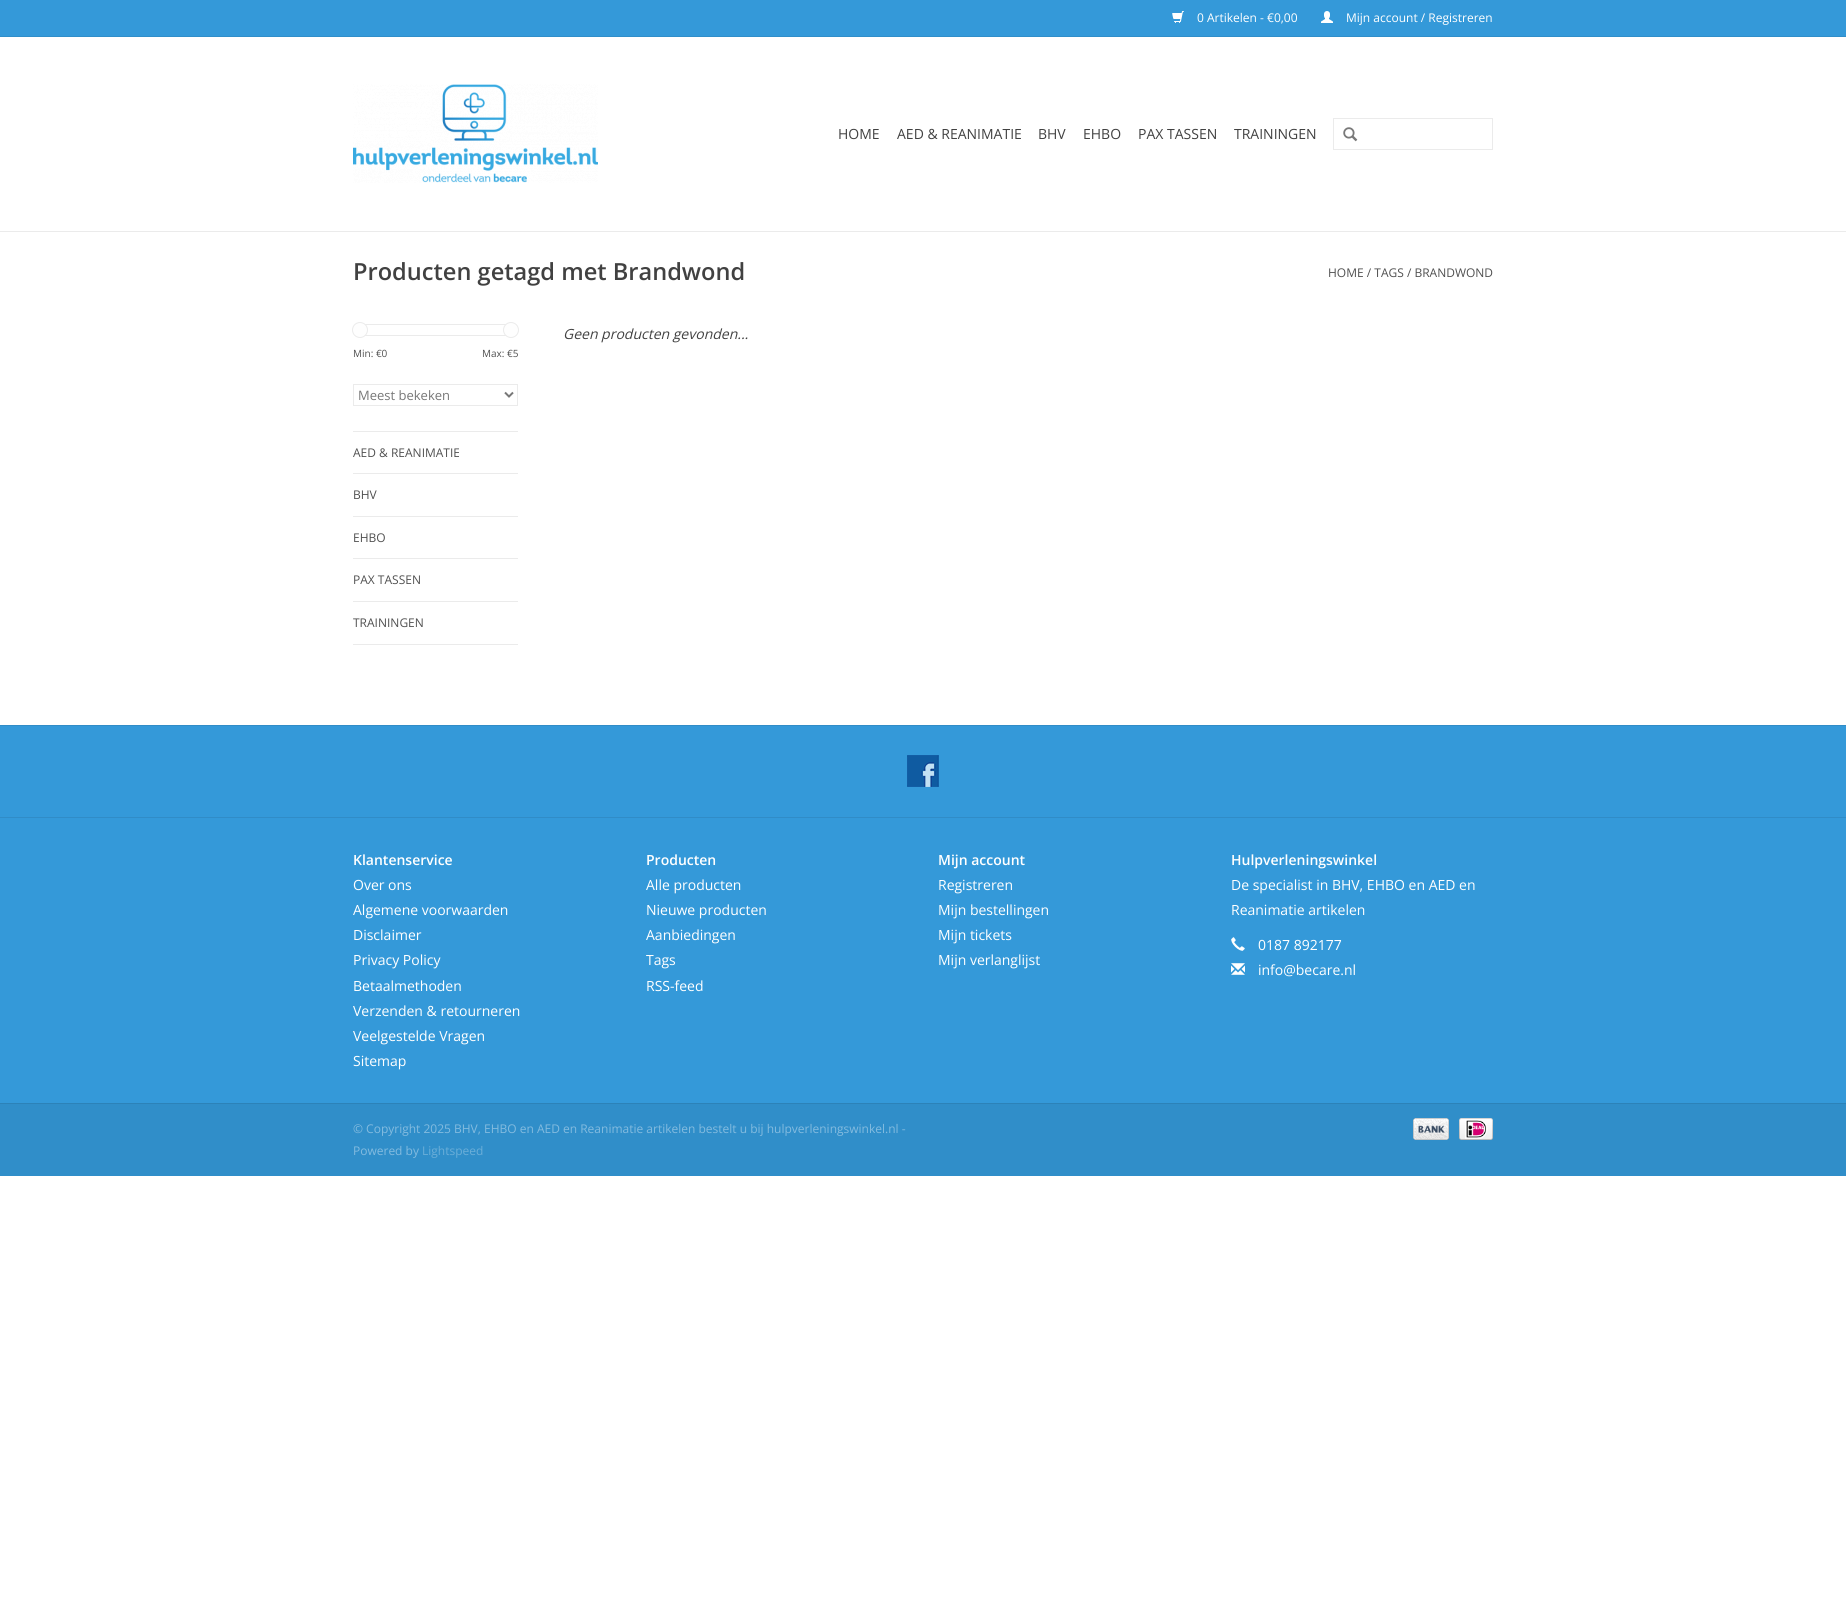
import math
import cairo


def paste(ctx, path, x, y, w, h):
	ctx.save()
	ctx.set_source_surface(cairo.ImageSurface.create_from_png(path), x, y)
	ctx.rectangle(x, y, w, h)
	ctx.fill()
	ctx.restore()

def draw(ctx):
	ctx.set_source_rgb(1, 1, 1)
	ctx.paint()
	ctx.set_source_rgb(0.918, 0.918, 0.918)
	ctx.rectangle(0, 231, 1846, 1)
	ctx.fill()
	ctx.set_source_rgb(0.204, 0.6, 0.851)
	ctx.rectangle(0, 0, 1846, 36)
	ctx.fill()
	ctx.set_source_rgb(0.188, 0.557, 0.788)
	ctx.rectangle(0, 36, 1846, 1)
	ctx.fill()
	paste(ctx, 'media/1.png', 1172, 11, 12, 12)
	ctx.select_font_face('Open Sans')
	ctx.set_font_size(12)
	ctx.set_source_rgb(1, 1, 1)
	ctx.move_to(1197, 22)
	ctx.show_text('0 Artikelen - €0,00')
	paste(ctx, 'media/2.png', 1321, 11, 12, 12)
	ctx.move_to(1346, 22)
	ctx.show_text('Mijn account / Registreren')
	paste(ctx, 'media/3.png', 353, 84, 245, 99)
	ctx.set_font_size(14)
	ctx.set_source_rgb(0.255, 0.255, 0.255)
	for x, y, s in [
		(838, 139, 'HOME'),
		(897, 139, 'AED & REANIMATIE'),
		(1038, 139, 'BHV'),
		(1083, 139, 'EHBO'),
		(1138, 139, 'PAX TASSEN'),
		(1234, 139, 'TRAININGEN'),
	]:
		ctx.move_to(x, y)
		ctx.show_text(s)
	ctx.rectangle(1333.5, 118.5, 159, 31)
	ctx.set_source_rgb(0.918, 0.918, 0.918)
	ctx.set_line_width(1)
	ctx.stroke()
	paste(ctx, 'media/4.png', 1343, 127, 15, 15)
	ctx.select_font_face('Open Sans SemiBold')
	ctx.set_font_size(23.6)
	ctx.set_source_rgb(0.255, 0.255, 0.255)
	ctx.move_to(353, 280)
	ctx.show_text('Producten getagd met Brandwond')
	ctx.select_font_face('Open Sans')
	ctx.set_font_size(12)
	ctx.set_source_rgb(0.314, 0.314, 0.314)
	ctx.move_to(1328, 277)
	ctx.show_text('HOME / TAGS / BRANDWOND')
	ctx.select_font_face('Open Sans', cairo.FONT_SLANT_ITALIC)
	ctx.set_font_size(14)
	ctx.set_source_rgb(0.255, 0.255, 0.255)
	ctx.move_to(563, 339)
	ctx.show_text('Geen producten gevonden...')
	ctx.set_source_rgb(0.918, 0.918, 0.918)
	ctx.rectangle(353, 431, 165, 1)
	ctx.fill()
	ctx.rectangle(361.5, 324.5, 150, 11)
	ctx.stroke()
	ctx.set_source_rgb(0.996, 0.996, 0.996)
	ctx.arc(360, 330, 7.5, 0, 2 * math.pi)
	ctx.fill_preserve()
	ctx.set_source_rgb(0.918, 0.918, 0.918)
	ctx.stroke()
	ctx.set_source_rgb(0.996, 0.996, 0.996)
	ctx.arc(511, 330, 7.5, 0, 2 * math.pi)
	ctx.fill_preserve()
	ctx.set_source_rgb(0.918, 0.918, 0.918)
	ctx.stroke()
	ctx.select_font_face('Open Sans')
	ctx.set_font_size(10)
	ctx.set_source_rgb(0.314, 0.314, 0.314)
	ctx.move_to(353, 357)
	ctx.show_text('Min: €0')
	ctx.move_to(482, 357)
	ctx.show_text('Max: €5')
	ctx.rectangle(353.5, 384.5, 164, 21)
	ctx.set_source_rgb(0.918, 0.918, 0.918)
	ctx.stroke()
	ctx.new_path()
	ctx.move_to(505, 392.5)
	ctx.line_to(509, 396.5)
	ctx.line_to(513, 392.5)
	ctx.set_source_rgb(0.467, 0.467, 0.467)
	ctx.set_line_width(2)
	ctx.stroke()
	ctx.set_font_size(13)
	ctx.move_to(358, 400)
	ctx.show_text('Meest bekeken')
	ctx.set_source_rgb(0.918, 0.918, 0.918)
	ctx.rectangle(353, 473, 165, 1)
	ctx.fill()
	ctx.set_font_size(12)
	ctx.set_source_rgb(0.314, 0.314, 0.314)
	ctx.move_to(353, 457)
	ctx.show_text('AED & REANIMATIE')
	ctx.set_source_rgb(0.918, 0.918, 0.918)
	ctx.rectangle(353, 516, 165, 1)
	ctx.fill()
	ctx.set_source_rgb(0.314, 0.314, 0.314)
	ctx.move_to(353, 499)
	ctx.show_text('BHV')
	ctx.set_source_rgb(0.918, 0.918, 0.918)
	ctx.rectangle(353, 558, 165, 1)
	ctx.fill()
	ctx.set_source_rgb(0.314, 0.314, 0.314)
	ctx.move_to(353, 542)
	ctx.show_text('EHBO')
	ctx.set_source_rgb(0.918, 0.918, 0.918)
	ctx.rectangle(353, 601, 165, 1)
	ctx.fill()
	ctx.set_source_rgb(0.314, 0.314, 0.314)
	ctx.move_to(353, 584)
	ctx.show_text('PAX TASSEN')
	ctx.set_source_rgb(0.918, 0.918, 0.918)
	ctx.rectangle(353, 644, 165, 1)
	ctx.fill()
	ctx.set_source_rgb(0.314, 0.314, 0.314)
	ctx.move_to(353, 627)
	ctx.show_text('TRAININGEN')
	ctx.set_source_rgb(0.204, 0.6, 0.851)
	ctx.rectangle(0, 726, 1846, 377)
	ctx.fill()
	ctx.set_source_rgb(0.188, 0.549, 0.78)
	ctx.rectangle(0, 725, 1846, 1)
	ctx.fill()
	paste(ctx, 'media/5.png', 907, 755, 32, 32)
	ctx.rectangle(0, 817, 1846, 1)
	ctx.fill()
	ctx.select_font_face('Open Sans SemiBold')
	ctx.set_font_size(14)
	ctx.set_source_rgb(1, 1, 1)
	ctx.move_to(353, 865)
	ctx.show_text('Klantenservice')
	ctx.select_font_face('Open Sans')
	for x, y, s in [
		(353, 890, 'Over ons'),
		(353, 915, 'Algemene voorwaarden'),
		(353, 940, 'Disclaimer'),
		(353, 965, 'Privacy Policy'),
		(353, 991, 'Betaalmethoden'),
		(353, 1016, 'Verzenden & retourneren'),
		(353, 1041, 'Veelgestelde Vragen'),
		(353, 1066, 'Sitemap'),
	]:
		ctx.move_to(x, y)
		ctx.show_text(s)
	ctx.select_font_face('Open Sans SemiBold')
	ctx.move_to(646, 865)
	ctx.show_text('Producten')
	ctx.select_font_face('Open Sans')
	for x, y, s in [
		(646, 890, 'Alle producten'),
		(646, 915, 'Nieuwe producten'),
		(646, 940, 'Aanbiedingen'),
		(646, 965, 'Tags'),
		(646, 991, 'RSS-feed'),
	]:
		ctx.move_to(x, y)
		ctx.show_text(s)
	ctx.select_font_face('Open Sans SemiBold')
	ctx.move_to(938, 865)
	ctx.show_text('Mijn account')
	ctx.select_font_face('Open Sans')
	for x, y, s in [
		(938, 890, 'Registreren'),
		(938, 915, 'Mijn bestellingen'),
		(938, 940, 'Mijn tickets'),
		(938, 965, 'Mijn verlanglijst'),
	]:
		ctx.move_to(x, y)
		ctx.show_text(s)
	ctx.select_font_face('Open Sans SemiBold')
	ctx.move_to(1231, 865)
	ctx.show_text('Hulpverleningswinkel')
	ctx.select_font_face('Open Sans')
	ctx.move_to(1231, 890)
	ctx.show_text('De specialist in BHV, EHBO en AED en')
	ctx.move_to(1231, 915)
	ctx.show_text('Reanimatie artikelen')
	paste(ctx, 'media/6.png', 1231, 937, 14, 14)
	ctx.move_to(1258, 950)
	ctx.show_text('0187 892177')
	paste(ctx, 'media/7.png', 1231, 963, 14, 12)
	ctx.move_to(1258, 975)
	ctx.show_text('info@becare.nl')
	ctx.set_source_rgb(0.173, 0.51, 0.722)
	ctx.rectangle(0, 1103, 1846, 1)
	ctx.fill()
	ctx.set_source_rgb(0.188, 0.557, 0.788)
	ctx.rectangle(0, 1104, 1846, 72)
	ctx.fill()
	ctx.set_font_size(12)
	ctx.set_source_rgb(0.514, 0.733, 0.875)
	ctx.move_to(353, 1133)
	ctx.show_text('© Copyright 2025 BHV, EHBO en AED en Reanimatie artikelen bestelt u bij hulpverleningswinkel.nl -')
	ctx.move_to(353, 1155)
	ctx.show_text('Powered by')
	ctx.set_source_rgb(0.416, 0.682, 0.847)
	ctx.move_to(422, 1155)
	ctx.show_text('Lightspeed')
	paste(ctx, 'media/8.png', 1413, 1118, 36, 22)
	paste(ctx, 'media/9.png', 1459, 1118, 34, 22)


surface = cairo.ImageSurface(cairo.FORMAT_RGB24, 1846, 1620)
ctx = cairo.Context(surface)
options = cairo.FontOptions()
options.set_hint_metrics(cairo.HINT_METRICS_OFF)
options.set_hint_style(cairo.HINT_STYLE_NONE)
ctx.set_font_options(options)
ctx.set_miter_limit(4)
draw(ctx)
surface.write_to_png('image.png')
